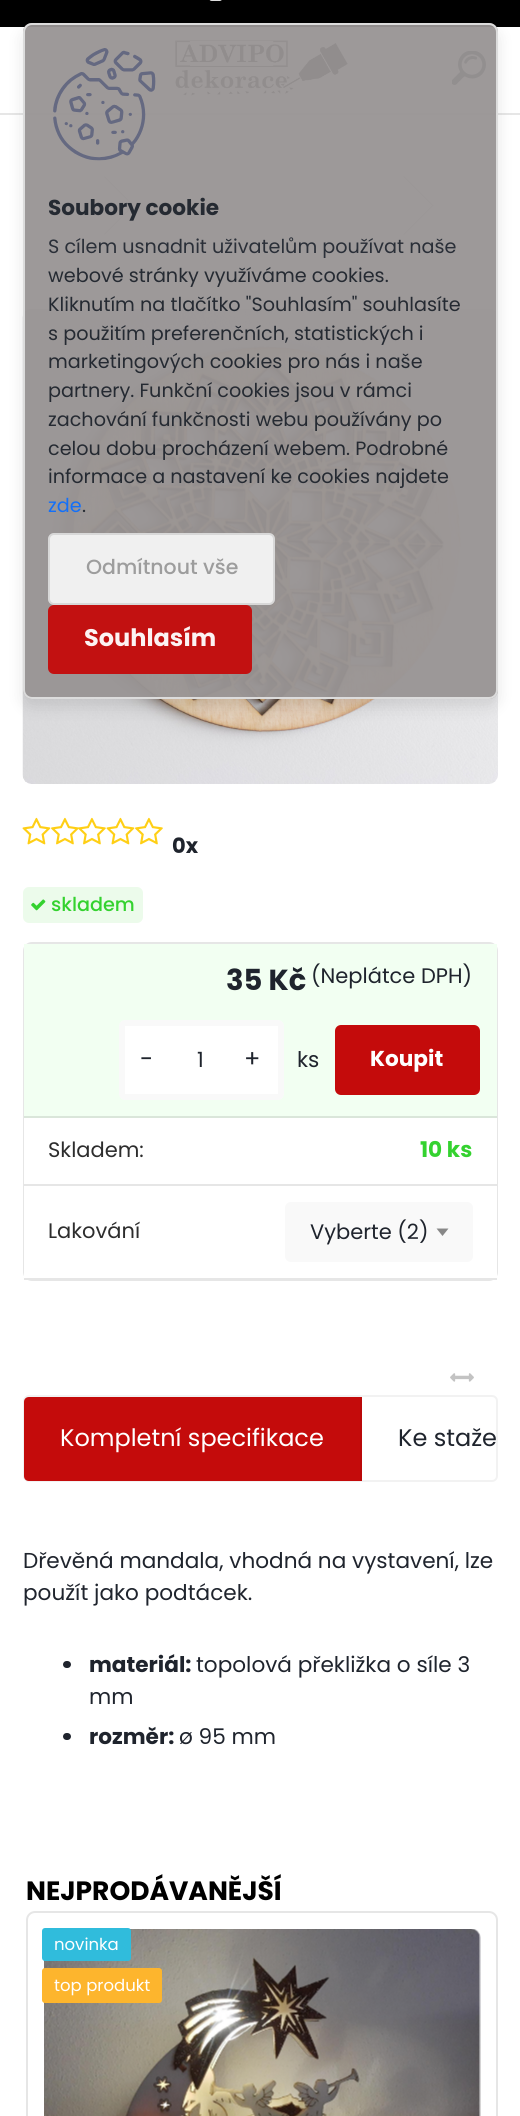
import math
import cairo


def round_path(ctx, x, y, w, h, r):
	ctx.new_sub_path()
	for i, (u, v) in enumerate([(x + w - r, y + h - r), (x + r, y + h - r), (x + r, y + r), (x + w - r, y + r)]):
		ctx.arc(u, v, r, i * math.pi / 2, (i + 1) * math.pi / 2)
	ctx.close_path()

def blur_box(ctx, x, y, w, h, r, blur, alpha):
	ctx.push_group_with_content(cairo.CONTENT_ALPHA)
	ctx.set_operator(cairo.OPERATOR_SOURCE)
	for i in range(15, -16, -2):
		e = blur * i / 6
		if min(w, h) + 2 * e > 0:
			ctx.set_source_rgba(0, 0, 0, alpha * math.erfc((i - 1) / 8.5) / 2)
			round_path(ctx, x - e, y - e, w + 2 * e, h + 2 * e, max(0, min(r + e + blur * .6, min(w, h) / 2 + e)))
			ctx.fill()
	ctx.mask(ctx.pop_group())

def paste(ctx, path, x, y, w, h):
	ctx.save()
	ctx.set_source_surface(cairo.ImageSurface.create_from_png(path), x, y)
	ctx.rectangle(x, y, w, h)
	ctx.fill()
	ctx.restore()

def draw(ctx):
	ctx.set_source_rgb(1, 1, 1)
	ctx.paint()
	ctx.set_source_rgb(0, 0, 0)
	ctx.rectangle(0, 0, 520, 27)
	ctx.fill()
	ctx.set_source_rgb(0.902, 0.902, 0.902)
	ctx.rectangle(0, 113, 520, 2)
	ctx.fill()
	paste(ctx, 'media/3.png', 175, 40, 173, 56)
	paste(ctx, 'media/4.png', 452, 51, 34, 34)
	ctx.set_source_rgb(0.843, 0.843, 0.843)
	ctx.new_path()
	ctx.move_to(103.5, 176.5)
	ctx.line_to(105, 176.5)
	ctx.line_to(134, 205.5)
	ctx.line_to(132.5, 205.5)
	ctx.close_path()
	ctx.fill()
	ctx.new_path()
	ctx.move_to(132.5, 205.5)
	ctx.line_to(134, 205.5)
	ctx.line_to(105, 234.5)
	ctx.line_to(103.5, 234.5)
	ctx.close_path()
	ctx.fill()
	ctx.new_path()
	ctx.move_to(403, 176.5)
	ctx.line_to(404.5, 176.5)
	ctx.line_to(433.5, 205.5)
	ctx.line_to(432, 205.5)
	ctx.close_path()
	ctx.fill()
	ctx.set_source_rgba(0.216, 0.216, 0.216, 0.2)
	ctx.new_path()
	ctx.move_to(432, 205.5)
	ctx.line_to(433.5, 205.5)
	ctx.line_to(404.5, 234.5)
	ctx.line_to(403, 234.5)
	ctx.close_path()
	ctx.fill()
	paste(ctx, 'media/5.png', 22, 308, 476, 476)
	ctx.save()
	ctx.set_fill_rule(cairo.FILL_RULE_EVEN_ODD)
	ctx.new_path()
	ctx.move_to(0, 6)
	ctx.line_to(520, 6)
	ctx.line_to(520, 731)
	ctx.line_to(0, 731)
	ctx.close_path()
	ctx.move_to(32, 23)
	ctx.line_to(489, 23)
	ctx.curve_to(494, 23, 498, 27, 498, 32)
	ctx.line_to(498, 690)
	ctx.curve_to(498, 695, 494, 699, 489, 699)
	ctx.line_to(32, 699)
	ctx.curve_to(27, 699, 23, 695, 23, 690)
	ctx.line_to(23, 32)
	ctx.curve_to(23, 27, 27, 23, 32, 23)
	ctx.close_path()
	ctx.clip()
	ctx.set_source_rgb(0, 0, 0)
	blur_box(ctx, 23, 30, 475, 677, 9, 7.5, 0.1)
	ctx.restore()
	ctx.set_source_rgba(0.6, 0.58, 0.58, 0.95)
	round_path(ctx, 23, 23, 475, 676, 9)
	ctx.fill()
	round_path(ctx, 24, 24, 473, 674, 8)
	ctx.set_source_rgba(0.878, 0.878, 0.878, 0.95)
	ctx.stroke()
	paste(ctx, 'media/1.png', 53, 48, 103, 113)
	ctx.select_font_face('Poppins', cairo.FONT_SLANT_NORMAL, cairo.FONT_WEIGHT_BOLD)
	ctx.set_font_size(21.6)
	ctx.set_source_rgb(0.145, 0.165, 0.196)
	ctx.move_to(48, 215)
	ctx.show_text('Soubory cookie')
	ctx.select_font_face('Poppins')
	ctx.set_font_size(19.2)
	ctx.set_source_rgb(0.165, 0.184, 0.22)
	ctx.move_to(48, 253)
	ctx.show_text('S cílem usnadnit uživatelům používat naše')
	ctx.set_source_rgb(0.145, 0.165, 0.196)
	for x, y, s in [
		(48, 282, 'webové stránky využíváme cookies.'),
		(48, 311, 'Kliknutím na tlačítko "Souhlasím" souhlasíte'),
		(48, 340, 's použitím preferenčních, statistických i'),
		(48, 368, 'marketingových cookies pro nás i naše'),
		(48, 397, 'partnery. Funkční cookies jsou v rámci'),
		(48, 426, 'zachování funkčnosti webu používány po'),
		(48, 455, 'celou dobu procházení webem. Podrobné'),
		(48, 483, 'informace a nastavení ke cookies najdete'),
	]:
		ctx.move_to(x, y)
		ctx.show_text(s)
	ctx.set_source_rgb(0.078, 0.439, 0.973)
	ctx.move_to(48, 512)
	ctx.show_text('zde')
	ctx.set_source_rgb(0.145, 0.165, 0.196)
	ctx.move_to(82, 512)
	ctx.show_text('.')
	ctx.set_source_rgba(0.961, 0.961, 0.961, 0.95)
	round_path(ctx, 48, 533, 227, 72, 6)
	ctx.fill()
	round_path(ctx, 49, 534, 225, 70, 5)
	ctx.set_source_rgba(0, 0, 0, 0.1)
	ctx.stroke()
	ctx.select_font_face('Poppins Medium')
	ctx.set_font_size(20.5)
	ctx.set_source_rgb(0.616, 0.616, 0.616)
	ctx.move_to(86, 574)
	ctx.show_text('Odmítnout vše')
	ctx.set_source_rgba(0.769, 0.043, 0.043, 0.95)
	round_path(ctx, 48, 605, 204, 69, 6)
	ctx.fill()
	ctx.select_font_face('Poppins', cairo.FONT_SLANT_NORMAL, cairo.FONT_WEIGHT_BOLD)
	ctx.set_font_size(24)
	ctx.set_source_rgb(0.988, 0.953, 0.953)
	ctx.move_to(84, 646)
	ctx.show_text('Souhlasím')
	paste(ctx, 'media/2.png', 209, 0, 13, 1)
	paste(ctx, 'media/6.png', 22, 817, 29, 28)
	paste(ctx, 'media/7.png', 51, 817, 28, 28)
	paste(ctx, 'media/8.png', 78, 817, 28, 28)
	paste(ctx, 'media/6.png', 106, 817, 29, 28)
	paste(ctx, 'media/7.png', 135, 817, 28, 28)
	ctx.set_font_size(21)
	ctx.set_source_rgb(0.122, 0.141, 0.176)
	ctx.move_to(172, 853)
	ctx.show_text('0x')
	ctx.set_source_rgb(0.922, 0.984, 0.918)
	round_path(ctx, 23, 887, 120, 36, 6)
	ctx.fill()
	paste(ctx, 'media/9.png', 31, 899, 15, 12)
	ctx.select_font_face('Poppins Medium')
	ctx.set_font_size(19.2)
	ctx.set_source_rgb(0.204, 0.824, 0.184)
	ctx.move_to(51, 911)
	ctx.show_text('skladem')
	round_path(ctx, 24, 943, 473, 337, 8)
	ctx.set_source_rgb(0.902, 0.902, 0.902)
	ctx.stroke()
	ctx.set_source_rgb(1, 1, 1)
	ctx.rectangle(24, 1118, 473, 160)
	ctx.fill()
	ctx.set_source_rgb(0.949, 1, 0.949)
	ctx.rectangle(24, 944, 473, 172)
	ctx.fill()
	ctx.select_font_face('Poppins', cairo.FONT_SLANT_NORMAL, cairo.FONT_WEIGHT_BOLD)
	ctx.set_font_size(29)
	ctx.set_source_rgb(0.122, 0.141, 0.176)
	ctx.move_to(226, 990)
	ctx.show_text('35 Kč')
	ctx.select_font_face('Poppins')
	ctx.set_font_size(21)
	ctx.move_to(311, 983)
	ctx.show_text('(Neplátce DPH)')
	ctx.set_source_rgb(0.855, 0.902, 0.855)
	ctx.rectangle(24, 1116, 473, 2)
	ctx.fill()
	ctx.set_source_rgb(1, 1, 1)
	round_path(ctx, 122, 1023, 159, 74, 3)
	ctx.fill_preserve()
	ctx.set_source_rgb(0.973, 0.973, 0.973)
	ctx.set_line_width(6)
	ctx.stroke()
	ctx.set_font_size(24)
	ctx.set_source_rgb(0.122, 0.141, 0.176)
	ctx.move_to(140, 1067)
	ctx.show_text('-')
	ctx.set_font_size(21)
	ctx.move_to(197, 1067)
	ctx.show_text('1')
	ctx.set_font_size(24)
	ctx.move_to(244, 1067)
	ctx.show_text('+')
	ctx.set_font_size(21.6)
	ctx.move_to(297, 1067)
	ctx.show_text('ks')
	ctx.set_source_rgb(0.769, 0.043, 0.043)
	round_path(ctx, 335, 1025, 145, 70, 6)
	ctx.fill()
	ctx.select_font_face('Poppins', cairo.FONT_SLANT_NORMAL, cairo.FONT_WEIGHT_BOLD)
	ctx.set_source_rgb(1, 1, 1)
	ctx.move_to(370, 1066)
	ctx.show_text('Koupit')
	ctx.set_source_rgb(0.902, 0.902, 0.902)
	ctx.rectangle(24, 1184, 473, 2)
	ctx.fill()
	ctx.select_font_face('Poppins')
	ctx.set_font_size(21)
	ctx.set_source_rgb(0.176, 0.176, 0.176)
	ctx.move_to(48, 1157)
	ctx.show_text('Skladem:')
	ctx.select_font_face('Poppins', cairo.FONT_SLANT_NORMAL, cairo.FONT_WEIGHT_BOLD)
	ctx.set_font_size(21.6)
	ctx.set_source_rgb(0.204, 0.824, 0.184)
	ctx.move_to(420, 1157)
	ctx.show_text('10 ks')
	ctx.set_source_rgb(0.902, 0.902, 0.902)
	ctx.rectangle(24, 1278, 473, 2)
	ctx.fill()
	ctx.select_font_face('Poppins')
	ctx.set_font_size(21)
	ctx.set_source_rgb(0.176, 0.176, 0.176)
	ctx.move_to(48, 1238)
	ctx.show_text('Lakování')
	ctx.set_source_rgb(0.973, 0.973, 0.973)
	round_path(ctx, 285, 1202, 188, 60, 6)
	ctx.fill()
	ctx.set_source_rgb(0.122, 0.141, 0.176)
	ctx.move_to(310, 1239)
	ctx.show_text('Vyberte (2)')
	ctx.set_source_rgb(0.533, 0.533, 0.533)
	ctx.new_path()
	ctx.move_to(436.5, 1228.5)
	ctx.line_to(448.5, 1228.5)
	ctx.line_to(442.5, 1236)
	ctx.close_path()
	ctx.fill()
	paste(ctx, 'media/10.png', 450, 1373, 24, 9)
	round_path(ctx, 24, 1396, 473, 85, 5)
	ctx.set_source_rgb(0.949, 0.949, 0.949)
	ctx.set_line_width(2)
	ctx.stroke()
	ctx.set_source_rgb(0.769, 0.043, 0.043)
	ctx.new_path()
	ctx.move_to(29, 1397)
	ctx.line_to(362, 1397)
	ctx.line_to(362, 1481)
	ctx.line_to(29, 1481)
	ctx.curve_to(26, 1481, 24, 1479, 24, 1476)
	ctx.line_to(24, 1402)
	ctx.curve_to(24, 1399, 26, 1397, 29, 1397)
	ctx.close_path()
	ctx.fill()
	ctx.set_source_rgb(0.729, 0.039, 0.039)
	ctx.rectangle(360, 1397, 2, 84)
	ctx.fill()
	ctx.set_font_size(24)
	ctx.set_source_rgb(1, 1, 1)
	ctx.move_to(60, 1446)
	ctx.show_text('Kompletní specifikace')
	ctx.set_source_rgb(0.122, 0.141, 0.176)
	ctx.move_to(398, 1446)
	ctx.show_text('Ke staže')
	ctx.set_font_size(21.6)
	ctx.move_to(23, 1568)
	ctx.show_text('Dřevěná mandala, vhodná na vystavení, lze')
	ctx.move_to(23, 1600)
	ctx.show_text('použít jako podtácek.')
	round_path(ctx, 63, 1661, 8, 7, 3.5)
	ctx.fill()
	ctx.select_font_face('Poppins', cairo.FONT_SLANT_NORMAL, cairo.FONT_WEIGHT_BOLD)
	ctx.move_to(89, 1672)
	ctx.show_text('materiál:')
	ctx.select_font_face('Poppins')
	ctx.move_to(196, 1672)
	ctx.show_text('topolová překližka o síle 3')
	ctx.move_to(89, 1704)
	ctx.show_text('mm')
	round_path(ctx, 63, 1733, 8, 7, 3.5)
	ctx.fill()
	ctx.select_font_face('Poppins', cairo.FONT_SLANT_NORMAL, cairo.FONT_WEIGHT_BOLD)
	ctx.move_to(89, 1744)
	ctx.show_text('rozměr:')
	ctx.select_font_face('Poppins')
	ctx.move_to(179, 1744)
	ctx.show_text('ø 95 mm')
	ctx.select_font_face('Poppins', cairo.FONT_SLANT_NORMAL, cairo.FONT_WEIGHT_BOLD)
	ctx.set_font_size(26.5)
	ctx.set_source_rgb(0, 0, 0)
	ctx.move_to(26, 1900)
	ctx.show_text('NEJPRODÁVANĚJŠÍ')
	round_path(ctx, 27, 1912, 470, 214, 8)
	ctx.set_source_rgb(0.902, 0.902, 0.902)
	ctx.stroke()
	paste(ctx, 'media/11.png', 44, 1929, 437, 187)
	ctx.set_source_rgb(0.188, 0.737, 0.863)
	round_path(ctx, 42, 1928, 89, 33, 3)
	ctx.fill()
	ctx.select_font_face('Poppins')
	ctx.set_font_size(16.5)
	ctx.set_source_rgb(1, 1, 1)
	ctx.move_to(54, 1950)
	ctx.show_text('novinka')
	ctx.set_source_rgb(0.992, 0.71, 0.176)
	round_path(ctx, 42, 1968, 120, 35, 3)
	ctx.fill()
	ctx.set_source_rgb(1, 1, 1)
	ctx.move_to(54, 1991)
	ctx.show_text('top produkt')


surface = cairo.ImageSurface(cairo.FORMAT_RGB24, 520, 2116)
ctx = cairo.Context(surface)
options = cairo.FontOptions()
options.set_hint_metrics(cairo.HINT_METRICS_OFF)
options.set_hint_style(cairo.HINT_STYLE_NONE)
ctx.set_font_options(options)
ctx.set_miter_limit(4)
draw(ctx)
surface.write_to_png('image.png')
